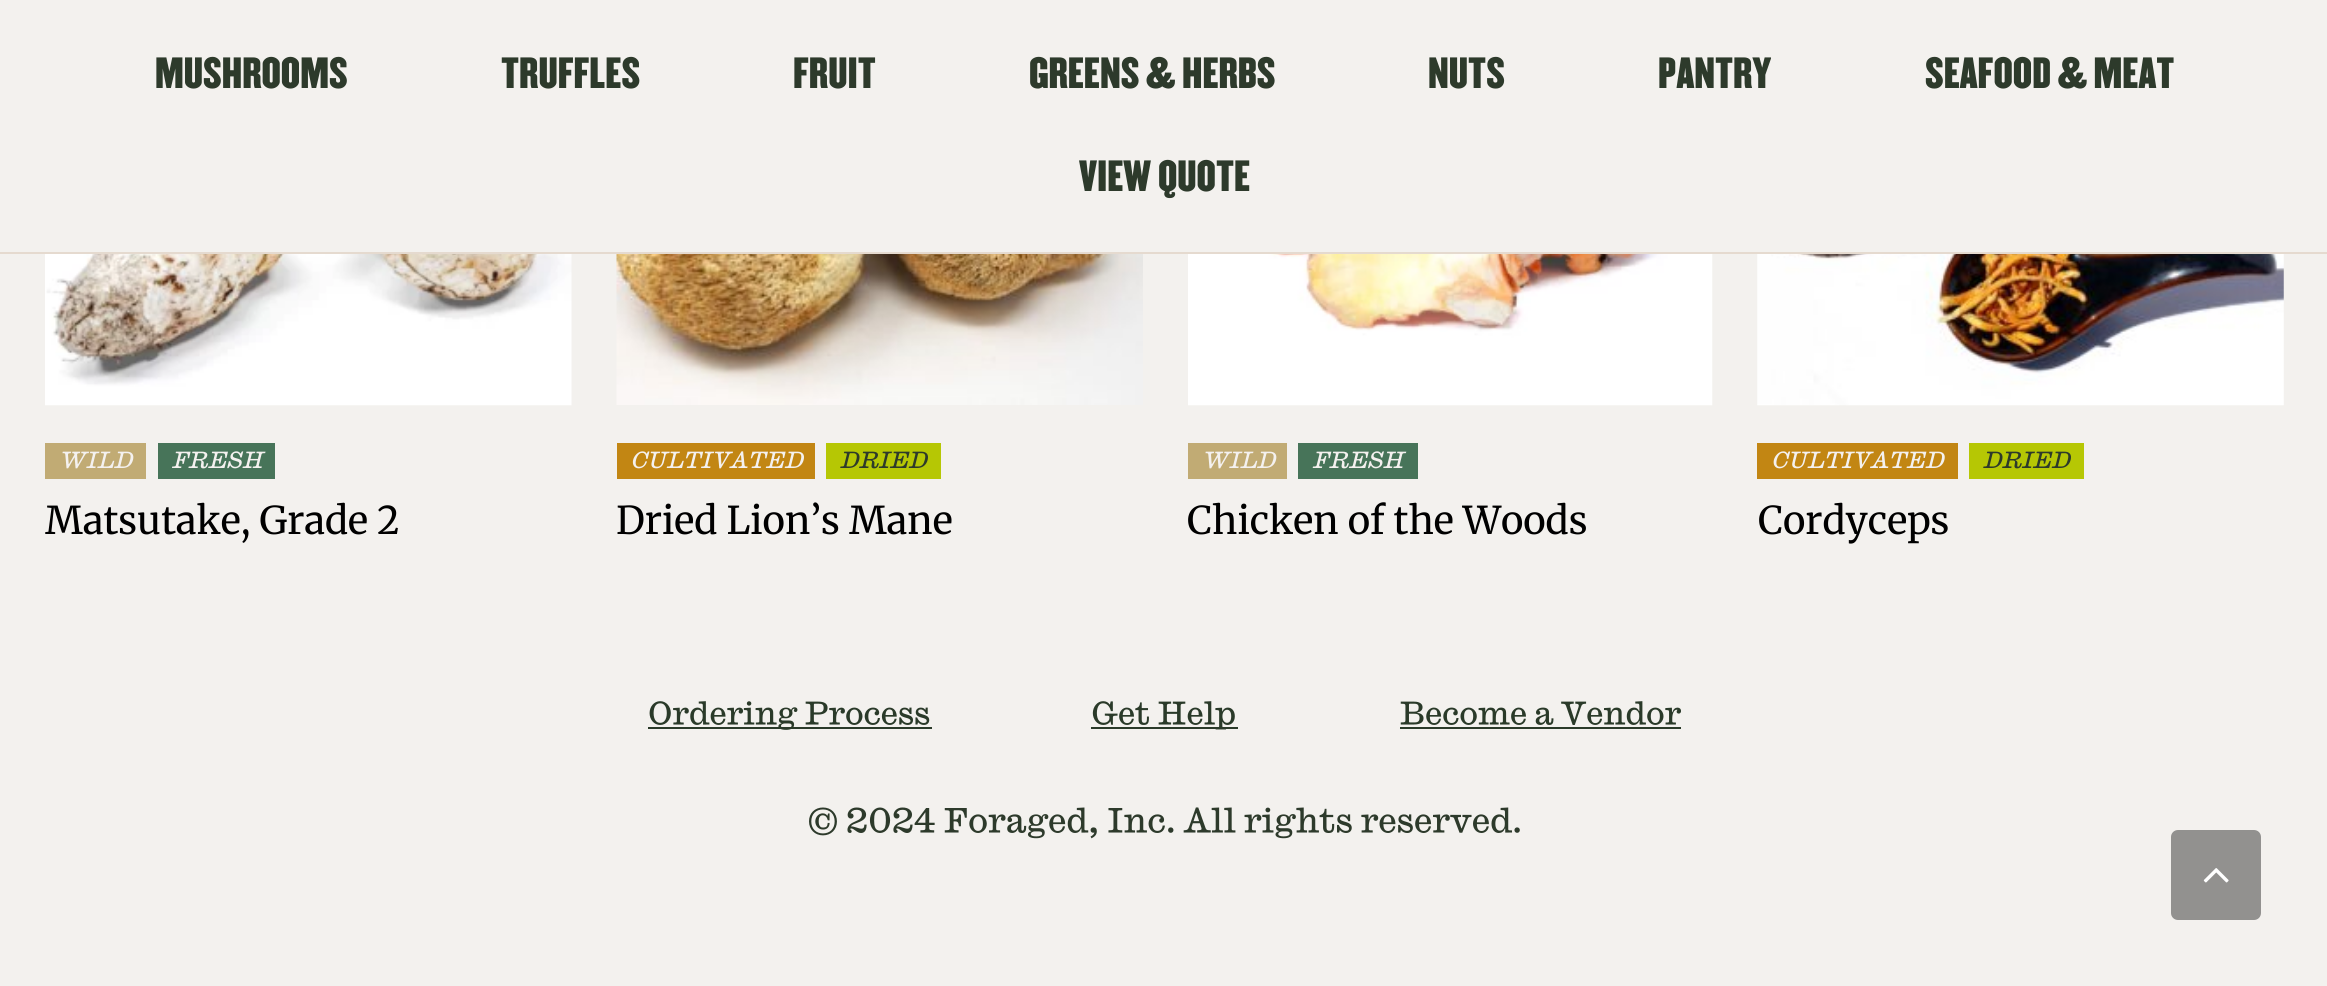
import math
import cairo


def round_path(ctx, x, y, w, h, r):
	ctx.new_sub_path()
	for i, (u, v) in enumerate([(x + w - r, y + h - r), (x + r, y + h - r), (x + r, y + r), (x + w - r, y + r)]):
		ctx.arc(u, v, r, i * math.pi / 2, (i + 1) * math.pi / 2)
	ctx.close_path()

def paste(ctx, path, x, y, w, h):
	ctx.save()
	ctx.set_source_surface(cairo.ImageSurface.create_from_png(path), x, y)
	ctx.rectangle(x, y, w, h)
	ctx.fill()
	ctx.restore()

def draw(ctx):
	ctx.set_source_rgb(0.953, 0.945, 0.933)
	ctx.paint()
	ctx.set_source_rgb(0.898, 0.855, 0.812)
	ctx.rectangle(0, 252, 2327, 2)
	ctx.fill()
	ctx.select_font_face('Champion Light')
	ctx.set_font_size(38.25)
	ctx.set_source_rgb(0.176, 0.227, 0.169)
	for x, y, s in [
		(155, 88, 'MUSHROOMS'),
		(501, 88, 'TRUFFLES'),
		(793, 88, 'FRUIT'),
		(1029, 88, 'GREENS & HERBS'),
		(1428, 88, 'NUTS'),
		(1658, 88, 'PANTRY'),
		(1925, 88, 'SEAFOOD & MEAT'),
		(1079, 191, 'VIEW QUOTE'),
	]:
		ctx.move_to(x, y)
		ctx.show_text(s)
	paste(ctx, 'media/1.png', 45, 254, 527, 152)
	ctx.set_source_rgb(0.757, 0.671, 0.455)
	ctx.rectangle(45, 443, 101, 36)
	ctx.fill()
	paste(ctx, 'media/2.png', 62, 451, 72, 18)
	ctx.set_source_rgb(0.278, 0.455, 0.349)
	ctx.rectangle(158, 443, 117, 36)
	ctx.fill()
	paste(ctx, 'media/3.png', 172, 451, 94, 18)
	ctx.select_font_face('Merriweather')
	ctx.set_source_rgb(0, 0, 0)
	ctx.move_to(45, 534)
	ctx.show_text('Matsutake, Grade 2')
	paste(ctx, 'media/4.png', 616, 254, 527, 151)
	ctx.set_source_rgb(0.761, 0.525, 0.078)
	ctx.rectangle(617, 443, 198, 36)
	ctx.fill()
	paste(ctx, 'media/5.png', 632, 451, 172, 18)
	ctx.set_source_rgb(0.714, 0.78, 0.016)
	ctx.rectangle(826, 443, 115, 36)
	ctx.fill()
	paste(ctx, 'media/6.png', 840, 451, 88, 18)
	ctx.set_source_rgb(0, 0, 0)
	ctx.move_to(616, 534)
	ctx.show_text('Dried Lion’s Mane')
	paste(ctx, 'media/7.png', 1188, 254, 525, 152)
	ctx.set_source_rgb(0.757, 0.671, 0.455)
	ctx.rectangle(1188, 443, 99, 36)
	ctx.fill()
	paste(ctx, 'media/2.png', 1205, 451, 72, 18)
	ctx.set_source_rgb(0.278, 0.455, 0.349)
	ctx.rectangle(1298, 443, 120, 36)
	ctx.fill()
	paste(ctx, 'media/8.png', 1312, 451, 95, 18)
	ctx.set_source_rgb(0, 0, 0)
	ctx.move_to(1187, 534)
	ctx.show_text('Chicken of the Woods')
	paste(ctx, 'media/9.png', 1757, 254, 527, 152)
	ctx.set_source_rgb(0.761, 0.525, 0.078)
	ctx.rectangle(1757, 443, 201, 36)
	ctx.fill()
	paste(ctx, 'media/10.png', 1773, 451, 172, 18)
	ctx.set_source_rgb(0.714, 0.78, 0.016)
	ctx.rectangle(1969, 443, 115, 36)
	ctx.fill()
	paste(ctx, 'media/6.png', 1983, 451, 88, 18)
	ctx.set_source_rgb(0, 0, 0)
	ctx.move_to(1758, 534)
	ctx.show_text('Cordyceps')
	ctx.set_source_rgb(0.165, 0.227, 0.161)
	ctx.rectangle(648, 727, 284, 2)
	ctx.fill()
	paste(ctx, 'media/11.png', 649, 701, 281, 29)
	ctx.rectangle(1091, 727, 147, 2)
	ctx.fill()
	paste(ctx, 'media/12.png', 1092, 701, 143, 29)
	paste(ctx, 'media/13.png', 1400, 701, 281, 24)
	ctx.rectangle(1400, 727, 281, 2)
	ctx.fill()
	paste(ctx, 'media/14.png', 809, 807, 711, 32)
	ctx.set_source_rgb(0.573, 0.569, 0.561)
	round_path(ctx, 2171, 830, 90, 90, 7)
	ctx.fill()
	paste(ctx, 'media/15.png', 2203, 868, 26, 15)


surface = cairo.ImageSurface(cairo.FORMAT_RGB24, 2327, 986)
ctx = cairo.Context(surface)
options = cairo.FontOptions()
options.set_hint_metrics(cairo.HINT_METRICS_OFF)
options.set_hint_style(cairo.HINT_STYLE_NONE)
ctx.set_font_options(options)
ctx.set_miter_limit(4)
draw(ctx)
surface.write_to_png('image.png')
